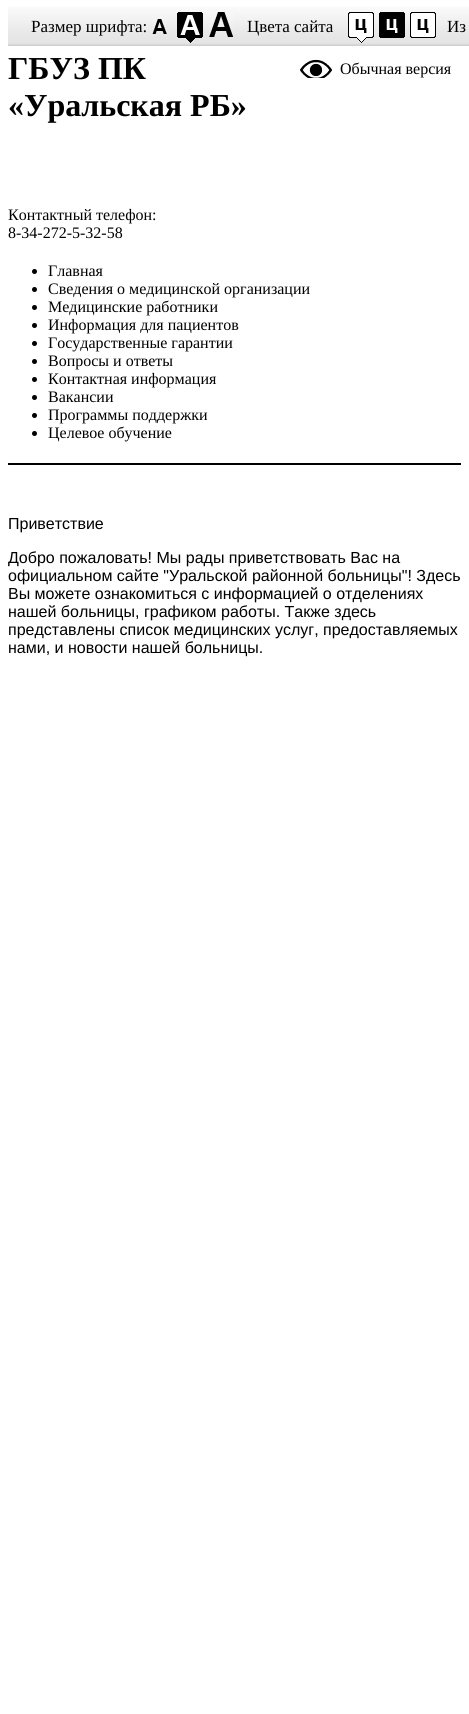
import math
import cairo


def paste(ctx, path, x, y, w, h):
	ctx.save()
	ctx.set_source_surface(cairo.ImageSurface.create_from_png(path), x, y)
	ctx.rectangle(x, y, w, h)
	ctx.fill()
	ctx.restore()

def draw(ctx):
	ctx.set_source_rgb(1, 1, 1)
	ctx.paint()
	paste(ctx, 'media/1.png', 8, 7, 461, 39)
	ctx.select_font_face('Liberation Serif')
	ctx.set_font_size(17)
	ctx.set_source_rgb(0, 0, 0)
	ctx.move_to(31, 32)
	ctx.show_text('Размер шрифта:')
	paste(ctx, 'media/2.png', 152, 19, 15, 15)
	paste(ctx, 'media/3.png', 177, 12, 26, 31)
	paste(ctx, 'media/4.png', 209, 12, 25, 25)
	ctx.move_to(247, 32)
	ctx.show_text('Цвета сайта')
	paste(ctx, 'media/5.png', 348, 12, 26, 31)
	paste(ctx, 'media/6.png', 379, 12, 26, 26)
	paste(ctx, 'media/7.png', 410, 12, 26, 26)
	ctx.move_to(447, 32)
	ctx.show_text('Из')
	ctx.select_font_face('Liberation Serif', cairo.FONT_SLANT_NORMAL, cairo.FONT_WEIGHT_BOLD)
	ctx.set_font_size(32)
	ctx.move_to(8, 79)
	ctx.show_text('ГБУЗ ПК')
	ctx.move_to(8, 116)
	ctx.show_text('«Уральская РБ»')
	ctx.select_font_face('Liberation Serif')
	ctx.set_font_size(16)
	ctx.move_to(8, 220)
	ctx.show_text('Контактный телефон:')
	ctx.move_to(8, 238)
	ctx.show_text('8-34-272-5-32-58')
	paste(ctx, 'media/8.png', 300, 59, 32, 19)
	ctx.move_to(340, 74)
	ctx.show_text('Обычная версия')
	ctx.rectangle(8, 463, 453, 2)
	ctx.fill()
	ctx.arc(34.5, 271.5, 2.5, 0, 2 * math.pi)
	ctx.fill()
	ctx.move_to(48, 276)
	ctx.show_text('Главная')
	ctx.new_path()
	ctx.arc(34.5, 289.5, 2.5, 0, 2 * math.pi)
	ctx.fill()
	ctx.move_to(48, 294)
	ctx.show_text('Сведения о медицинской организации')
	ctx.new_path()
	ctx.arc(34.5, 307.5, 2.5, 0, 2 * math.pi)
	ctx.fill()
	ctx.move_to(48, 312)
	ctx.show_text('Медицинские работники')
	ctx.new_path()
	ctx.arc(34.5, 325.5, 2.5, 0, 2 * math.pi)
	ctx.fill()
	ctx.move_to(48, 330)
	ctx.show_text('Информация для пациентов')
	ctx.new_path()
	ctx.arc(34.5, 343.5, 2.5, 0, 2 * math.pi)
	ctx.fill()
	ctx.move_to(48, 348)
	ctx.show_text('Государственные гарантии')
	ctx.new_path()
	ctx.arc(34.5, 361.5, 2.5, 0, 2 * math.pi)
	ctx.fill()
	ctx.move_to(48, 366)
	ctx.show_text('Вопросы и ответы')
	ctx.new_path()
	ctx.arc(34.5, 379.5, 2.5, 0, 2 * math.pi)
	ctx.fill()
	ctx.move_to(48, 384)
	ctx.show_text('Контактная информация')
	ctx.new_path()
	ctx.arc(34.5, 397.5, 2.5, 0, 2 * math.pi)
	ctx.fill()
	ctx.move_to(48, 402)
	ctx.show_text('Вакансии')
	ctx.new_path()
	ctx.arc(34.5, 415.5, 2.5, 0, 2 * math.pi)
	ctx.fill()
	ctx.move_to(48, 420)
	ctx.show_text('Программы поддержки')
	ctx.new_path()
	ctx.arc(34.5, 433.5, 2.5, 0, 2 * math.pi)
	ctx.fill()
	ctx.move_to(48, 438)
	ctx.show_text('Целевое обучение')
	ctx.select_font_face('Liberation Sans')
	for x, y, s in [
		(8, 529, 'Приветствие'),
		(8, 563, 'Добро пожаловать! Мы рады приветствовать Вас на'),
		(8, 581, 'официальном сайте "Уральской районной больницы"! Здесь'),
		(8, 599, 'Вы можете ознакомиться с информацией о отделениях'),
		(8, 617, 'нашей больницы, графиком работы. Также здесь'),
		(8, 635, 'представлены список медицинских услуг, предоставляемых'),
		(8, 653, 'нами, и новости нашей больницы.'),
	]:
		ctx.move_to(x, y)
		ctx.show_text(s)


surface = cairo.ImageSurface(cairo.FORMAT_RGB24, 469, 1714)
ctx = cairo.Context(surface)
options = cairo.FontOptions()
options.set_hint_metrics(cairo.HINT_METRICS_OFF)
options.set_hint_style(cairo.HINT_STYLE_NONE)
ctx.set_font_options(options)
ctx.set_miter_limit(4)
draw(ctx)
surface.write_to_png('image.png')
